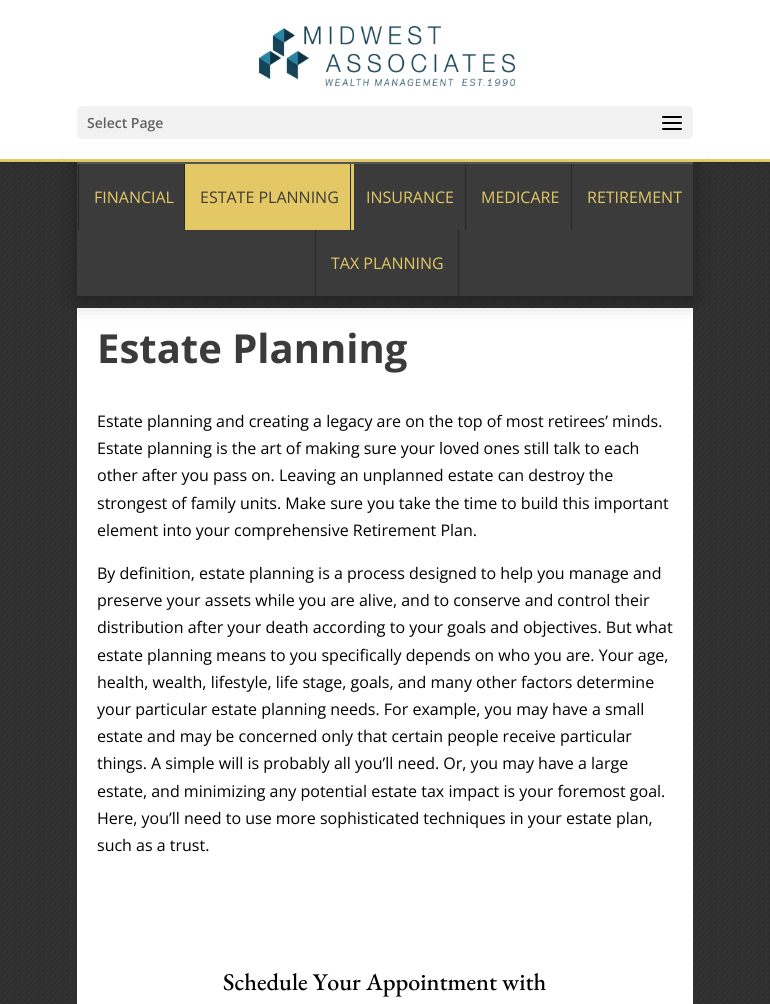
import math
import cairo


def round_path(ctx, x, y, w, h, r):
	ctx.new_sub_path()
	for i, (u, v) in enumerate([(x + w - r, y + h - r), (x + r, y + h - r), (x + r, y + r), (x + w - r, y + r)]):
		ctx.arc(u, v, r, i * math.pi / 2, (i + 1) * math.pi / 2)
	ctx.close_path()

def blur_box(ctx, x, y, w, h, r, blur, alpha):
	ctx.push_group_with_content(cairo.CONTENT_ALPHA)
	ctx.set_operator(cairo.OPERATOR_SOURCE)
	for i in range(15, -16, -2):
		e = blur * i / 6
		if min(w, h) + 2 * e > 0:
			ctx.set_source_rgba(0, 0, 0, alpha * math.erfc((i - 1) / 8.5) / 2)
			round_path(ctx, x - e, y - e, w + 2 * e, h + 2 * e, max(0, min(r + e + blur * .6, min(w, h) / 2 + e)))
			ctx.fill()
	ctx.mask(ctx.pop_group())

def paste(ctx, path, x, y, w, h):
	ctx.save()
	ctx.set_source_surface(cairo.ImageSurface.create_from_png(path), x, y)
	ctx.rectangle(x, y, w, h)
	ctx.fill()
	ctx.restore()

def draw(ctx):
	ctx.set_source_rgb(1, 1, 1)
	ctx.paint()
	paste(ctx, 'media/3.png', 0, 162, 770, 842)
	ctx.set_source_rgb(1, 1, 1)
	ctx.rectangle(77, 308, 616, 696)
	ctx.fill()
	ctx.set_source_rgb(0, 0, 0)
	blur_box(ctx, 77, 164, 616, 136, 0, 10, 0.35)
	ctx.set_source_rgb(0.349, 0.349, 0.349)
	ctx.rectangle(77, 162, 616, 2)
	ctx.fill()
	ctx.set_source_rgba(0, 0, 0, 0.1)
	ctx.rectangle(0, 162, 770, 1)
	ctx.fill()
	ctx.set_source_rgb(1, 1, 1)
	ctx.rectangle(64, 145, 642, 14)
	ctx.fill()
	ctx.set_source_rgb(0.89, 0.784, 0.396)
	ctx.rectangle(0, 159, 770, 3)
	ctx.fill()
	paste(ctx, 'media/1.png', 259, 26, 256, 60)
	ctx.set_source_rgb(0.949, 0.949, 0.949)
	round_path(ctx, 77, 106, 616, 33, 5)
	ctx.fill()
	ctx.select_font_face('Open Sans SemiBold')
	ctx.set_font_size(14)
	ctx.set_source_rgb(0.38, 0.38, 0.38)
	ctx.move_to(87, 128)
	ctx.show_text('Select Page')
	paste(ctx, 'media/2.png', 662, 116, 20, 14)
	ctx.set_source_rgb(0.231, 0.231, 0.231)
	ctx.rectangle(77, 164, 616, 132)
	ctx.fill()
	ctx.set_source_rgb(0.149, 0.149, 0.149)
	ctx.rectangle(77, 296, 616, 2)
	ctx.rectangle(78, 164, 1, 66)
	ctx.fill()
	ctx.select_font_face('Open Sans')
	ctx.set_font_size(16)
	ctx.set_source_rgb(0.89, 0.784, 0.396)
	ctx.move_to(94, 203)
	ctx.show_text('FINANCIAL')
	ctx.rectangle(185, 164, 169, 66)
	ctx.fill()
	ctx.set_source_rgb(0.149, 0.149, 0.149)
	ctx.rectangle(184, 164, 1, 66)
	ctx.fill()
	ctx.set_source_rgb(0.231, 0.231, 0.231)
	ctx.move_to(200, 203)
	ctx.show_text('ESTATE PLANNING')
	ctx.set_source_rgb(0.149, 0.149, 0.149)
	ctx.rectangle(350, 164, 1, 66)
	ctx.fill()
	ctx.set_source_rgb(0.89, 0.784, 0.396)
	ctx.move_to(366, 203)
	ctx.show_text('INSURANCE')
	ctx.set_source_rgb(0.149, 0.149, 0.149)
	ctx.rectangle(465, 164, 1, 66)
	ctx.fill()
	ctx.set_source_rgb(0.89, 0.784, 0.396)
	ctx.move_to(481, 203)
	ctx.show_text('MEDICARE')
	ctx.set_source_rgb(0.149, 0.149, 0.149)
	ctx.rectangle(571, 164, 1, 66)
	ctx.fill()
	ctx.set_source_rgb(0.89, 0.784, 0.396)
	ctx.move_to(587, 203)
	ctx.show_text('RETIREMENT')
	ctx.set_source_rgb(0.149, 0.149, 0.149)
	ctx.rectangle(458, 230, 1, 66)
	ctx.fill()
	ctx.rectangle(315, 230, 1, 66)
	ctx.fill()
	ctx.set_source_rgb(0.89, 0.784, 0.396)
	ctx.move_to(331, 269)
	ctx.show_text('TAX PLANNING')
	ctx.select_font_face('Open Sans', cairo.FONT_SLANT_NORMAL, cairo.FONT_WEIGHT_BOLD)
	ctx.set_font_size(40)
	ctx.set_source_rgb(0.231, 0.231, 0.231)
	ctx.move_to(97, 363)
	ctx.show_text('Estate Planning')
	ctx.select_font_face('Open Sans')
	ctx.set_font_size(16)
	ctx.set_source_rgb(0, 0, 0)
	for x, y, s in [
		(97, 427, 'Estate planning and creating a legacy are on the top of most retirees’ minds.'),
		(97, 454, 'Estate planning is the art of making sure your loved ones still talk to each'),
		(97, 481, 'other after you pass on. Leaving an unplanned estate can destroy the'),
		(97, 509, 'strongest of family units. Make sure you take the time to build this important'),
		(97, 536, 'element into your comprehensive Retirement Plan.'),
		(97, 579, 'By definition, estate planning is a process designed to help you manage and'),
		(97, 606, 'preserve your assets while you are alive, and to conserve and control their'),
		(97, 633, 'distribution after your death according to your goals and objectives. But what'),
		(97, 661, 'estate planning means to you specifically depends on who you are. Your age,'),
		(97, 688, 'health, wealth, lifestyle, life stage, goals, and many other factors determine'),
		(97, 715, 'your particular estate planning needs. For example, you may have a small'),
		(97, 742, 'estate and may be concerned only that certain people receive particular'),
		(97, 769, 'things. A simple will is probably all you’ll need. Or, you may have a large'),
		(97, 797, 'estate, and minimizing any potential estate tax impact is your foremost goal.'),
		(97, 824, 'Here, you’ll need to use more sophisticated techniques in your estate plan,'),
		(97, 851, 'such as a trust.'),
	]:
		ctx.move_to(x, y)
		ctx.show_text(s)
	ctx.select_font_face('EB Garamond Medium')
	ctx.set_font_size(24)
	ctx.move_to(223, 990)
	ctx.show_text('Schedule Your Appointment with')


surface = cairo.ImageSurface(cairo.FORMAT_RGB24, 770, 1004)
ctx = cairo.Context(surface)
options = cairo.FontOptions()
options.set_hint_metrics(cairo.HINT_METRICS_OFF)
options.set_hint_style(cairo.HINT_STYLE_NONE)
ctx.set_font_options(options)
ctx.set_miter_limit(4)
draw(ctx)
surface.write_to_png('image.png')
